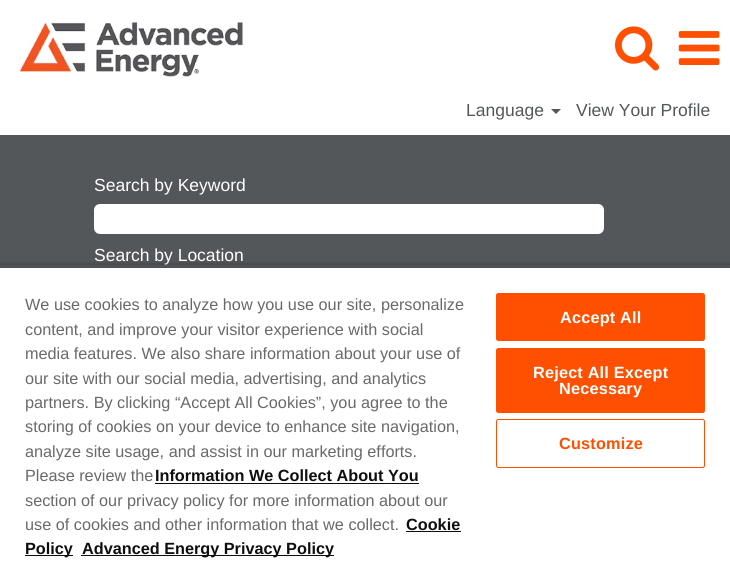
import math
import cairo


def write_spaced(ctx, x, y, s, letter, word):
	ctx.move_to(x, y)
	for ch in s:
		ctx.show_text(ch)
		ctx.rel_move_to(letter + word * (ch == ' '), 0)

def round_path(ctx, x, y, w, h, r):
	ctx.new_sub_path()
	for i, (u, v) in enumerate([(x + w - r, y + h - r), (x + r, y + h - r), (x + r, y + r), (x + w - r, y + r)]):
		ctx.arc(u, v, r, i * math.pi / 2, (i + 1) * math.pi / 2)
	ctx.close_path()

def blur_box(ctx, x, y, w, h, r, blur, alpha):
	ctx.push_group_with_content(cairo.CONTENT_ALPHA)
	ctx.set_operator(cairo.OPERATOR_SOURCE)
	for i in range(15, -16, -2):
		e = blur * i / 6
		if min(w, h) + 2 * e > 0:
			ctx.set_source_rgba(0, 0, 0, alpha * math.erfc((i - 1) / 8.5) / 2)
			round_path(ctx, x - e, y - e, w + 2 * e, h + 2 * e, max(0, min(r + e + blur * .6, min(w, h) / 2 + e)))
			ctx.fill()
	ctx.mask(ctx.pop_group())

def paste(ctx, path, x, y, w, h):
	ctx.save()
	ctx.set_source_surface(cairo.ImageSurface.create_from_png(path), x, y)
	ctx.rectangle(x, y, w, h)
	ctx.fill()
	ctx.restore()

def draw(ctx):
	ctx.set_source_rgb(1, 1, 1)
	ctx.paint()
	paste(ctx, 'media/1.png', 20, 22, 223, 55)
	paste(ctx, 'media/2.png', 615, 26, 45, 45)
	paste(ctx, 'media/3.png', 678, 31, 42, 34)
	ctx.select_font_face('Liberation Sans')
	ctx.set_font_size(17.5)
	ctx.set_source_rgb(0.325, 0.341, 0.353)
	ctx.move_to(466, 116)
	ctx.show_text('Language')
	ctx.new_path()
	ctx.move_to(551, 109)
	ctx.line_to(561, 109)
	ctx.line_to(556, 114)
	ctx.close_path()
	ctx.fill()
	ctx.move_to(576, 116)
	ctx.show_text('View Your Profile')
	ctx.rectangle(0, 135, 730, 133)
	ctx.fill()
	ctx.set_source_rgb(1, 1, 1)
	ctx.move_to(94, 191)
	ctx.show_text('Search by Keyword')
	round_path(ctx, 94, 204, 510, 30, 6)
	ctx.fill()
	ctx.move_to(94, 261)
	ctx.show_text('Search by Location')
	ctx.save()
	ctx.rectangle(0, 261, 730, 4)
	ctx.clip()
	ctx.set_source_rgb(0, 0, 0)
	blur_box(ctx, 0, 265, 730, 296, 0, 2.5, 0.35)
	ctx.restore()
	ctx.set_source_rgb(0, 0, 0)
	blur_box(ctx, 0, 268, 730, 293, 0, 2.5, 0.2)
	ctx.set_source_rgb(1, 1, 1)
	ctx.rectangle(0, 268, 730, 293)
	ctx.fill()
	ctx.set_font_size(16.25)
	ctx.set_source_rgb(0.412, 0.412, 0.412)
	for x, y, s in [
		(25, 310, 'We use cookies to analyze how you use our site, personalize'),
		(25, 335, 'content, and improve your visitor experience with social'),
		(25, 359, 'media features. We also share information about your use of'),
		(25, 384, 'our site with our social media, advertising, and analytics'),
		(25, 408, 'partners. By clicking “Accept All Cookies”, you agree to the'),
		(25, 432, 'storing of cookies on your device to enhance site navigation,'),
		(25, 457, 'analyze site usage, and assist in our marketing efforts.'),
		(25, 481, 'Please review the'),
	]:
		ctx.move_to(x, y)
		ctx.show_text(s)
	ctx.select_font_face('Liberation Sans', cairo.FONT_SLANT_NORMAL, cairo.FONT_WEIGHT_BOLD)
	ctx.set_source_rgb(0.059, 0.055, 0.055)
	ctx.move_to(155, 481)
	ctx.show_text('Information We Collect About You')
	ctx.rectangle(155, 483, 264, 1)
	ctx.fill()
	ctx.select_font_face('Liberation Sans')
	ctx.set_source_rgb(0.412, 0.412, 0.412)
	ctx.move_to(25, 506)
	ctx.show_text('section of our privacy policy for more information about our')
	ctx.move_to(25, 530)
	ctx.show_text('use of cookies and other information that we collect.')
	ctx.select_font_face('Liberation Sans', cairo.FONT_SLANT_NORMAL, cairo.FONT_WEIGHT_BOLD)
	ctx.set_source_rgb(0.059, 0.055, 0.055)
	ctx.move_to(406, 530)
	ctx.show_text('Cookie')
	ctx.rectangle(406, 531, 55, 1)
	ctx.fill()
	ctx.rectangle(25, 555, 48, 1)
	ctx.fill()
	ctx.move_to(25, 554)
	ctx.show_text('Policy')
	ctx.rectangle(81, 555, 253, 1)
	ctx.fill()
	ctx.move_to(82, 554)
	ctx.show_text('Advanced Energy Privacy Policy')
	ctx.set_source_rgb(0.996, 0.314, 0)
	round_path(ctx, 496.5, 293.5, 208, 47, 2)
	ctx.fill_preserve()
	ctx.set_line_width(1)
	ctx.stroke()
	ctx.set_source_rgb(1, 1, 1)
	write_spaced(ctx, 560, 323, 'Accept All', 0.2, 0)
	ctx.set_source_rgb(0.996, 0.314, 0)
	round_path(ctx, 496.5, 348.5, 208, 64, 2)
	ctx.fill_preserve()
	ctx.stroke()
	ctx.set_source_rgb(1, 1, 1)
	write_spaced(ctx, 533, 378, 'Reject All Except', 0.2, 0)
	write_spaced(ctx, 559, 394, 'Necessary', 0.2, 0)
	round_path(ctx, 496.5, 419.5, 208, 48, 2)
	ctx.set_source_rgb(0.996, 0.314, 0)
	ctx.stroke()
	write_spaced(ctx, 559, 449, 'Customize', 0.2, 0)


surface = cairo.ImageSurface(cairo.FORMAT_RGB24, 730, 561)
ctx = cairo.Context(surface)
options = cairo.FontOptions()
options.set_hint_metrics(cairo.HINT_METRICS_OFF)
options.set_hint_style(cairo.HINT_STYLE_NONE)
ctx.set_font_options(options)
ctx.set_miter_limit(4)
draw(ctx)
surface.write_to_png('image.png')
